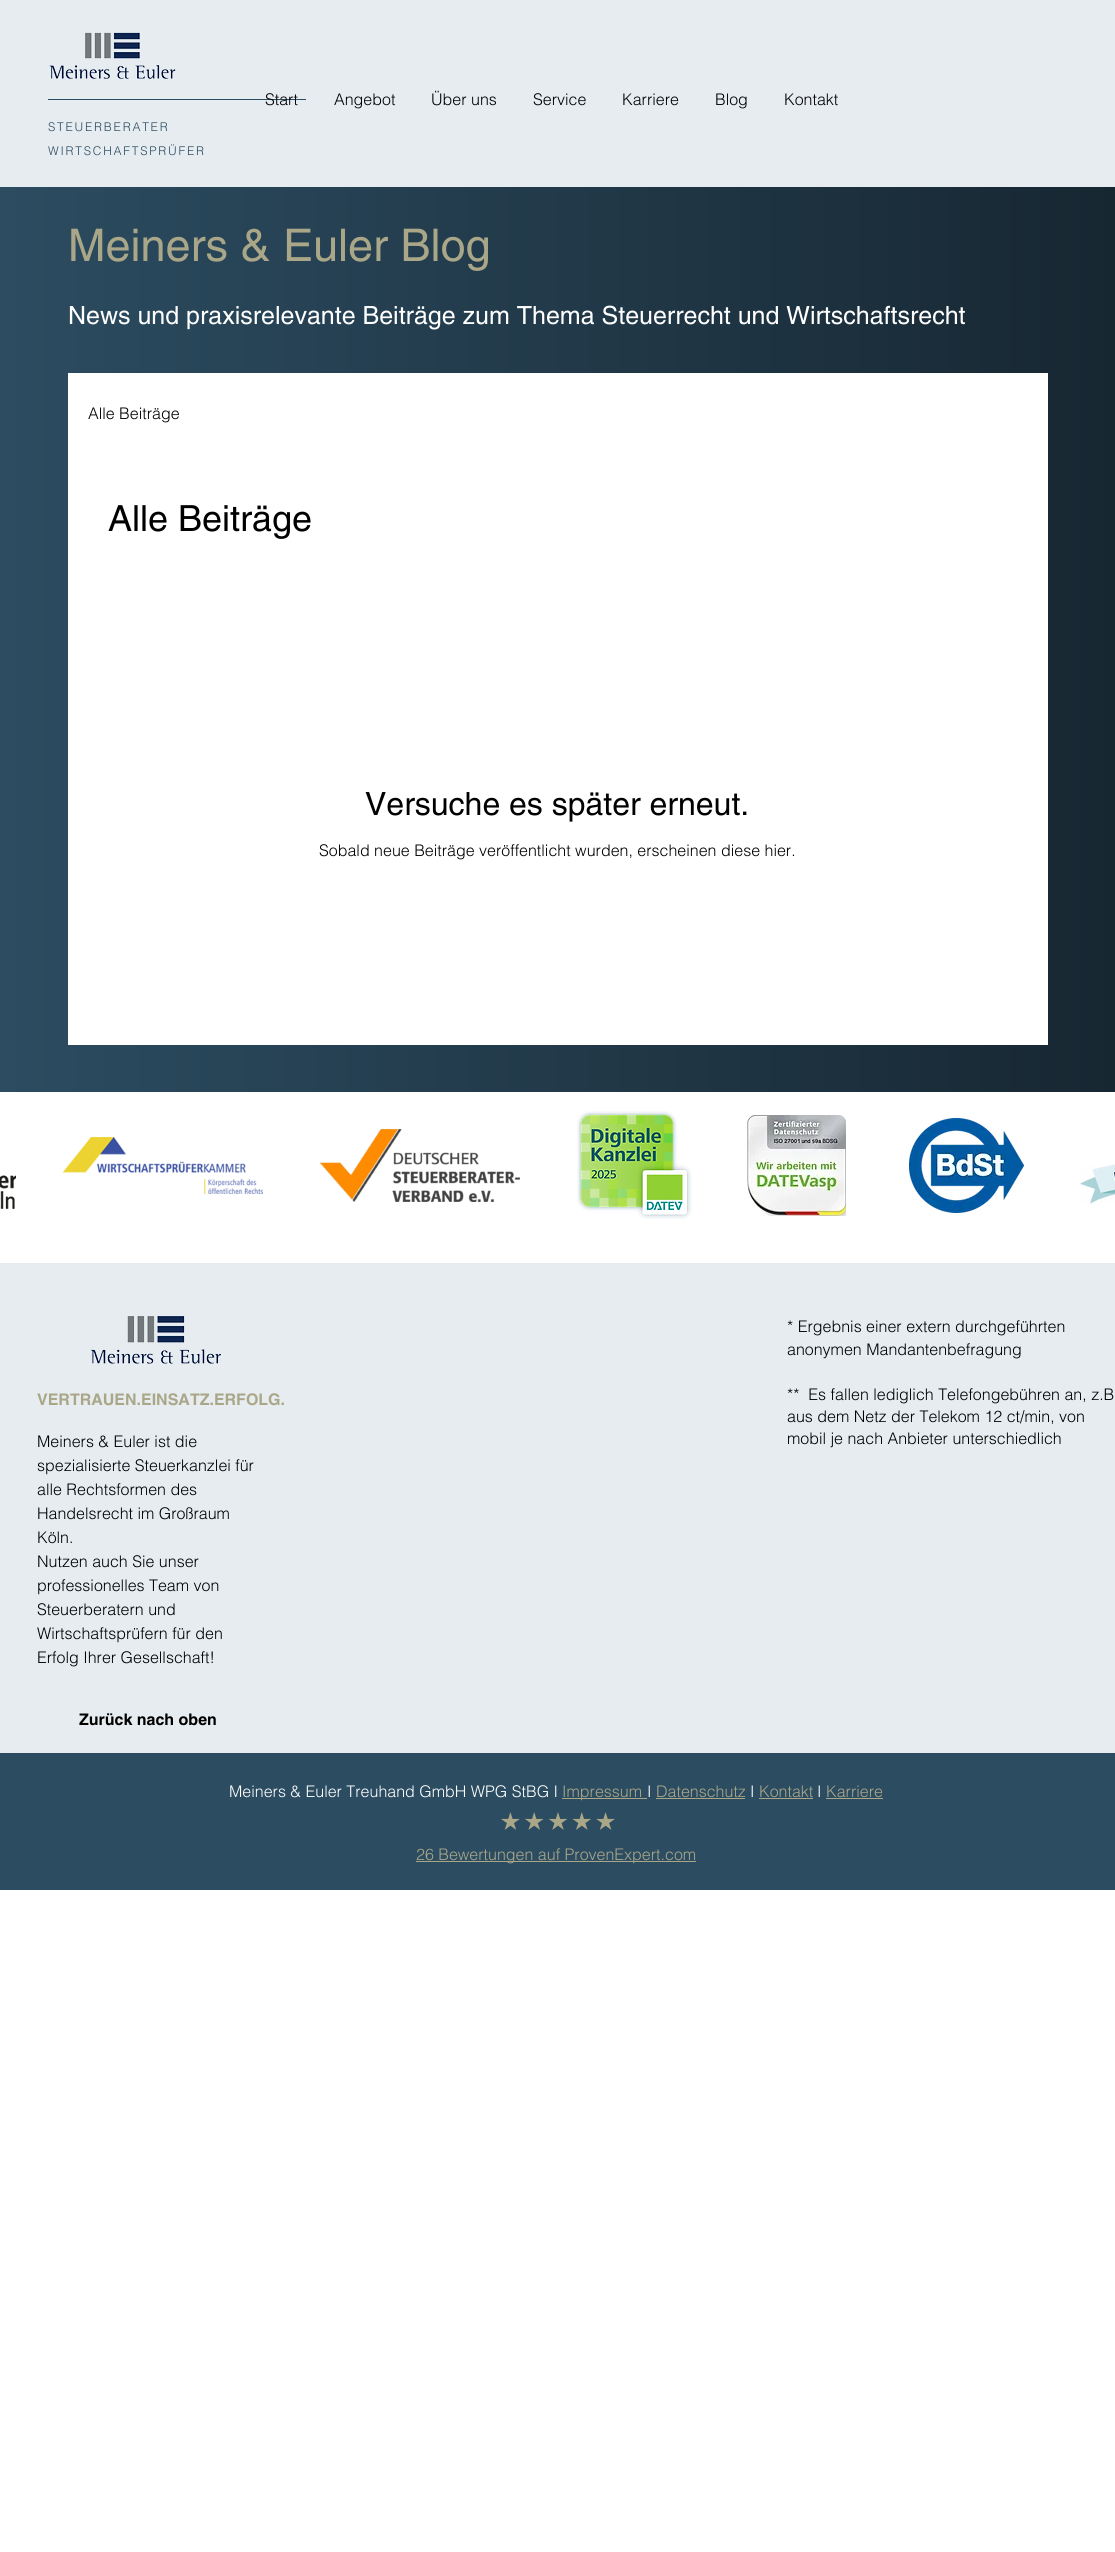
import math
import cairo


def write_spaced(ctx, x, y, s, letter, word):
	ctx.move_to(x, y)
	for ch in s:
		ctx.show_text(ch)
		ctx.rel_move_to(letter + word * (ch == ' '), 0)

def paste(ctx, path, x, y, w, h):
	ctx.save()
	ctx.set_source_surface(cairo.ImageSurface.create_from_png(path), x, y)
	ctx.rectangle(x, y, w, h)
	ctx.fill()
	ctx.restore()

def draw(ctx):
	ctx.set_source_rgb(1, 1, 1)
	ctx.paint()
	ctx.set_source_rgb(0.902, 0.922, 0.941)
	ctx.rectangle(0, 0, 1115, 187)
	ctx.fill()
	ctx.set_source_rgb(0.173, 0.298, 0.38)
	ctx.rectangle(48, 99, 258, 1)
	ctx.fill()
	ctx.select_font_face('helvetica Light')
	ctx.set_font_size(16)
	ctx.set_source_rgb(0, 0, 0)
	for x, y, s in [
		(265, 105, 'Start'),
		(334, 105, 'Angebot'),
		(431, 105, 'Über uns'),
		(533, 105, 'Service'),
		(622, 105, 'Karriere'),
		(715, 105, 'Blog'),
		(784, 105, 'Kontakt'),
	]:
		ctx.move_to(x, y)
		ctx.show_text(s)
	paste(ctx, 'media/1.png', 49, 32, 127, 47)
	ctx.set_font_size(12)
	ctx.set_source_rgb(0.173, 0.298, 0.38)
	write_spaced(ctx, 48, 131, 'STEUERBERATER', 1.75, 0)
	write_spaced(ctx, 48, 155, 'WIRTSCHAFTSPRÜFER', 1.75, 0)
	gradient = cairo.LinearGradient(0, 280, 1115, 279)
	gradient.add_color_stop_rgba(0, 0.173, 0.298, 0.38, 1)
	gradient.add_color_stop_rgba(1, 0.09, 0.153, 0.196, 1)
	ctx.set_source(gradient)
	ctx.rectangle(0, 187, 1115, 186)
	ctx.fill()
	ctx.select_font_face('helvetica')
	ctx.set_font_size(45)
	ctx.set_source_rgb(0.667, 0.655, 0.537)
	ctx.move_to(68, 261)
	ctx.show_text('Meiners & Euler Blog')
	ctx.set_font_size(25)
	ctx.set_source_rgb(1, 1, 1)
	ctx.move_to(68, 324)
	ctx.show_text('News und praxisrelevante Beiträge zum Thema Steuerrecht und Wirtschaftsrecht')
	gradient = cairo.LinearGradient(0, 733, 1115, 733)
	gradient.add_color_stop_rgba(0, 0.173, 0.298, 0.38, 1)
	gradient.add_color_stop_rgba(1, 0.09, 0.153, 0.196, 1)
	ctx.set_source(gradient)
	ctx.rectangle(0, 373, 1115, 719)
	ctx.fill()
	ctx.set_source_rgb(1, 1, 1)
	ctx.rectangle(68, 373, 980, 672)
	ctx.fill()
	ctx.select_font_face('helvetica Light')
	ctx.set_font_size(16)
	ctx.set_source_rgb(0, 0, 0)
	ctx.move_to(88, 419)
	ctx.show_text('Alle Beiträge')
	ctx.select_font_face('helvetica')
	ctx.set_font_size(36)
	ctx.move_to(108, 531)
	ctx.show_text('Alle Beiträge')
	ctx.set_font_size(32)
	ctx.move_to(365, 815)
	ctx.show_text('Versuche es später erneut.')
	ctx.select_font_face('helvetica Light')
	ctx.set_font_size(16)
	ctx.move_to(319, 856)
	ctx.show_text('Sobald neue Beiträge veröffentlicht wurden, erscheinen diese hier.')
	paste(ctx, 'media/2.png', 0, 1175, 16, 34)
	paste(ctx, 'media/3.png', 63, 1137, 200, 57)
	paste(ctx, 'media/4.png', 320, 1129, 200, 73)
	paste(ctx, 'media/5.png', 577, 1111, 115, 108)
	paste(ctx, 'media/6.png', 747, 1115, 99, 101)
	paste(ctx, 'media/7.png', 909, 1118, 115, 95)
	paste(ctx, 'media/8.png', 1080, 1164, 35, 40)
	ctx.set_source_rgb(0.902, 0.922, 0.941)
	ctx.rectangle(0, 1263, 1115, 490)
	ctx.fill()
	paste(ctx, 'media/9.png', 91, 1316, 130, 48)
	ctx.select_font_face('helvetica', cairo.FONT_SLANT_NORMAL, cairo.FONT_WEIGHT_BOLD)
	ctx.set_source_rgb(0.667, 0.655, 0.537)
	ctx.move_to(37, 1405)
	ctx.show_text('VERTRAUEN.EINSATZ.ERFOLG.')
	ctx.select_font_face('helvetica Light')
	ctx.set_source_rgb(0, 0, 0)
	for x, y, s in [
		(37, 1447, 'Meiners & Euler ist die'),
		(37, 1471, 'spezialisierte Steuerkanzlei für'),
		(37, 1495, 'alle Rechtsformen des'),
		(37, 1519, 'Handelsrecht im Großraum'),
		(37, 1543, 'Köln.'),
		(37, 1567, 'Nutzen auch Sie unser'),
		(37, 1591, 'professionelles Team von'),
		(37, 1615, 'Steuerberatern und'),
		(37, 1639, 'Wirtschaftsprüfern für den'),
		(37, 1663, 'Erfolg Ihrer Gesellschaft!'),
	]:
		ctx.move_to(x, y)
		ctx.show_text(s)
	ctx.select_font_face('helvetica', cairo.FONT_SLANT_NORMAL, cairo.FONT_WEIGHT_BOLD)
	ctx.move_to(79, 1725)
	ctx.show_text('Zurück nach oben')
	ctx.select_font_face('helvetica Light')
	for x, y, s in [
		(787, 1332, '* Ergebnis einer extern durchgeführten'),
		(787, 1355, 'anonymen Mandantenbefragung'),
		(787, 1400, '**  Es fallen lediglich Telefongebühren an, z.B'),
		(787, 1422, 'aus dem Netz der Telekom 12 ct/min, von'),
		(787, 1444, 'mobil je nach Anbieter unterschiedlich'),
	]:
		ctx.move_to(x, y)
		ctx.show_text(s)
	ctx.set_source_rgb(0.173, 0.298, 0.38)
	ctx.rectangle(0, 1753, 1115, 137)
	ctx.fill()
	ctx.set_source_rgb(1, 1, 1)
	ctx.move_to(229, 1797)
	ctx.show_text('Meiners & Euler Treuhand GmbH WPG StBG I')
	ctx.set_source_rgb(0.667, 0.655, 0.537)
	ctx.rectangle(562, 1798, 85, 1)
	ctx.fill()
	ctx.move_to(562, 1797)
	ctx.show_text('Impressum')
	ctx.set_source_rgb(1, 1, 1)
	ctx.move_to(647, 1797)
	ctx.show_text('I')
	ctx.set_source_rgb(0.667, 0.655, 0.537)
	ctx.move_to(656, 1797)
	ctx.show_text('Datenschutz')
	ctx.rectangle(656, 1798, 89, 1)
	ctx.fill()
	ctx.set_source_rgb(1, 1, 1)
	ctx.move_to(750, 1797)
	ctx.show_text('I')
	ctx.set_source_rgb(0.667, 0.655, 0.537)
	ctx.move_to(759, 1797)
	ctx.show_text('Kontakt')
	ctx.rectangle(759, 1798, 54, 1)
	ctx.fill()
	ctx.set_source_rgb(1, 1, 1)
	ctx.move_to(817, 1797)
	ctx.show_text('I')
	ctx.set_source_rgb(0.667, 0.655, 0.537)
	ctx.move_to(826, 1797)
	ctx.show_text('Karriere')
	ctx.rectangle(826, 1798, 57, 1)
	ctx.fill()
	paste(ctx, 'media/10.png', 501, 1812, 114, 18)
	ctx.rectangle(416, 1861, 280, 1)
	ctx.fill()
	ctx.move_to(416, 1860)
	ctx.show_text('26 Bewertungen auf ProvenExpert.com')


surface = cairo.ImageSurface(cairo.FORMAT_RGB24, 1115, 2552)
ctx = cairo.Context(surface)
options = cairo.FontOptions()
options.set_hint_metrics(cairo.HINT_METRICS_OFF)
options.set_hint_style(cairo.HINT_STYLE_NONE)
ctx.set_font_options(options)
ctx.set_miter_limit(4)
draw(ctx)
surface.write_to_png('image.png')
